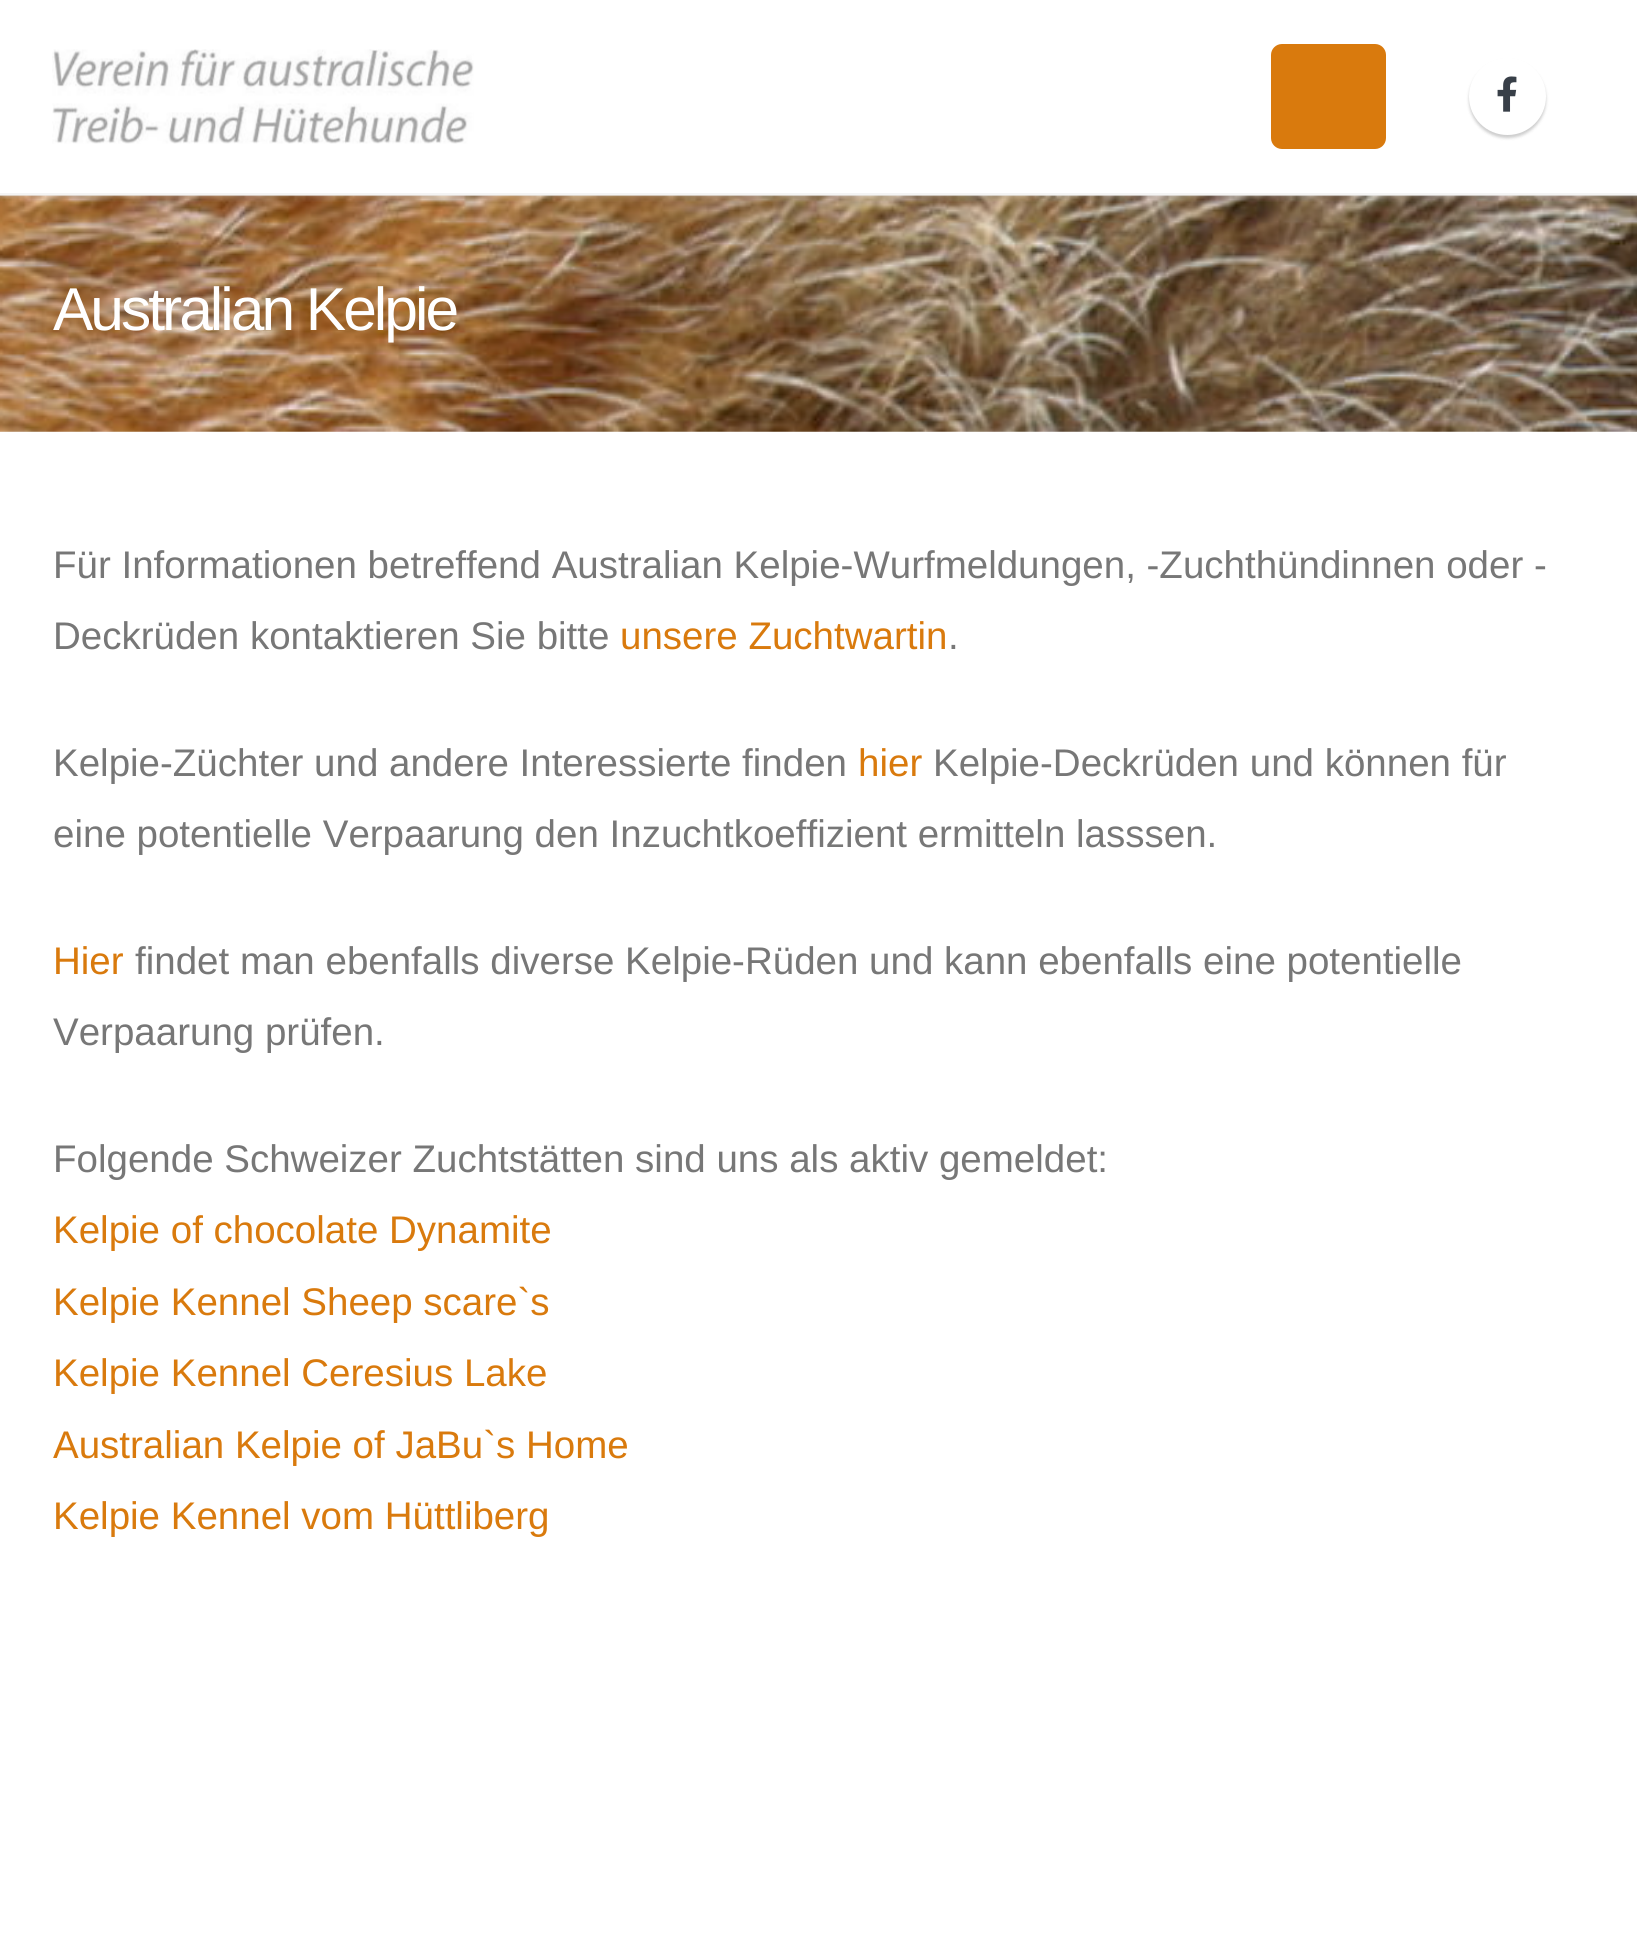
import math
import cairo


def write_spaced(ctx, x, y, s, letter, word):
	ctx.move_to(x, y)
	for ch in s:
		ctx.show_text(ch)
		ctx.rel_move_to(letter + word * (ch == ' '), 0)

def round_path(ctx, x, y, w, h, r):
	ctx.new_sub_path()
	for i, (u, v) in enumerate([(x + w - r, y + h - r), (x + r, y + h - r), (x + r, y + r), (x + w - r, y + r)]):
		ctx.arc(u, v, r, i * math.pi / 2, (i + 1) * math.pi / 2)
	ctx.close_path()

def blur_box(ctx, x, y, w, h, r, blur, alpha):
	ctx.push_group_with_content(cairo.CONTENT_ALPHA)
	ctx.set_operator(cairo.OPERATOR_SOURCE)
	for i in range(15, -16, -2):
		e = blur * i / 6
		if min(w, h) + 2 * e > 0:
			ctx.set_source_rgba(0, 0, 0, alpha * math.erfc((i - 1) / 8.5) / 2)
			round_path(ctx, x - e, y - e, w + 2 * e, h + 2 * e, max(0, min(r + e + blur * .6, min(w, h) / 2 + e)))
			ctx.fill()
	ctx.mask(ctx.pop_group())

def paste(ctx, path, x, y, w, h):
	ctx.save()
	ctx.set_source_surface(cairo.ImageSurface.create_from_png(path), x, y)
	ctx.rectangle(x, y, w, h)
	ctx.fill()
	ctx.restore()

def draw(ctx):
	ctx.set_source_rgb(1, 1, 1)
	ctx.paint()
	paste(ctx, 'media/3.png', 0, 195, 1637, 237)
	ctx.save()
	ctx.rectangle(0, 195, 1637, 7)
	ctx.clip()
	ctx.set_source_rgb(0.918, 0.918, 0.918)
	blur_box(ctx, 0, 0, 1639, 195, 0, 4, 0.5)
	ctx.restore()
	ctx.set_source_rgba(0.918, 0.918, 0.918, 0.5)
	ctx.rectangle(0, 193, 1637, 3)
	ctx.fill()
	paste(ctx, 'media/1.png', 52, 49, 422, 95)
	ctx.set_source_rgb(0.851, 0.478, 0.051)
	round_path(ctx, 1271, 44, 115, 105, 11)
	ctx.fill()
	ctx.set_source_rgb(0, 0, 0)
	blur_box(ctx, 1469, 61, 77, 77, 38.5, 1.5, 0.2)
	ctx.set_source_rgb(1, 1, 1)
	ctx.arc(1507.5, 96.5, 38.5, 0, 2 * math.pi)
	ctx.fill()
	paste(ctx, 'media/2.png', 1497, 76, 20, 36)
	ctx.select_font_face('Liberation Sans')
	ctx.set_font_size(60.5)
	write_spaced(ctx, 53, 330, 'Australian Kelpie', -3, 0)
	ctx.set_font_size(38.5)
	ctx.set_source_rgb(0.467, 0.467, 0.467)
	ctx.move_to(53, 578)
	ctx.show_text('Für Informationen betreffend Australian Kelpie-Wurfmeldungen, -Zuchthündinnen oder -')
	ctx.move_to(53, 649)
	ctx.show_text('Deckrüden kontaktieren Sie bitte')
	ctx.set_source_rgb(0.851, 0.478, 0.051)
	ctx.move_to(620, 649)
	ctx.show_text('unsere Zuchtwartin')
	ctx.set_source_rgb(0.467, 0.467, 0.467)
	ctx.move_to(948, 649)
	ctx.show_text('.')
	ctx.move_to(53, 776)
	ctx.show_text('Kelpie-Züchter und andere Interessierte finden')
	ctx.set_source_rgb(0.851, 0.478, 0.051)
	ctx.move_to(858, 776)
	ctx.show_text('hier')
	ctx.set_source_rgb(0.467, 0.467, 0.467)
	ctx.move_to(933, 776)
	ctx.show_text('Kelpie-Deckrüden und können für')
	ctx.move_to(53, 847)
	ctx.show_text('eine potentielle Verpaarung den Inzuchtkoeffizient ermitteln lasssen.')
	ctx.set_source_rgb(0.851, 0.478, 0.051)
	ctx.move_to(53, 974)
	ctx.show_text('Hier')
	ctx.set_source_rgb(0.467, 0.467, 0.467)
	for x, y, s in [
		(135, 974, 'findet man ebenfalls diverse Kelpie-Rüden und kann ebenfalls eine potentielle'),
		(53, 1045, 'Verpaarung prüfen.'),
		(53, 1172, 'Folgende Schweizer Zuchtstätten sind uns als aktiv gemeldet:'),
	]:
		ctx.move_to(x, y)
		ctx.show_text(s)
	ctx.set_source_rgb(0.851, 0.478, 0.051)
	for x, y, s in [
		(53, 1243, 'Kelpie of chocolate Dynamite'),
		(53, 1315, 'Kelpie Kennel Sheep scare`s'),
		(53, 1386, 'Kelpie Kennel Ceresius Lake'),
		(53, 1458, 'Australian Kelpie of JaBu`s Home'),
		(53, 1529, 'Kelpie Kennel vom Hüttliberg'),
	]:
		ctx.move_to(x, y)
		ctx.show_text(s)


surface = cairo.ImageSurface(cairo.FORMAT_RGB24, 1637, 1936)
ctx = cairo.Context(surface)
options = cairo.FontOptions()
options.set_hint_metrics(cairo.HINT_METRICS_OFF)
options.set_hint_style(cairo.HINT_STYLE_NONE)
ctx.set_font_options(options)
ctx.set_miter_limit(4)
draw(ctx)
surface.write_to_png('image.png')
